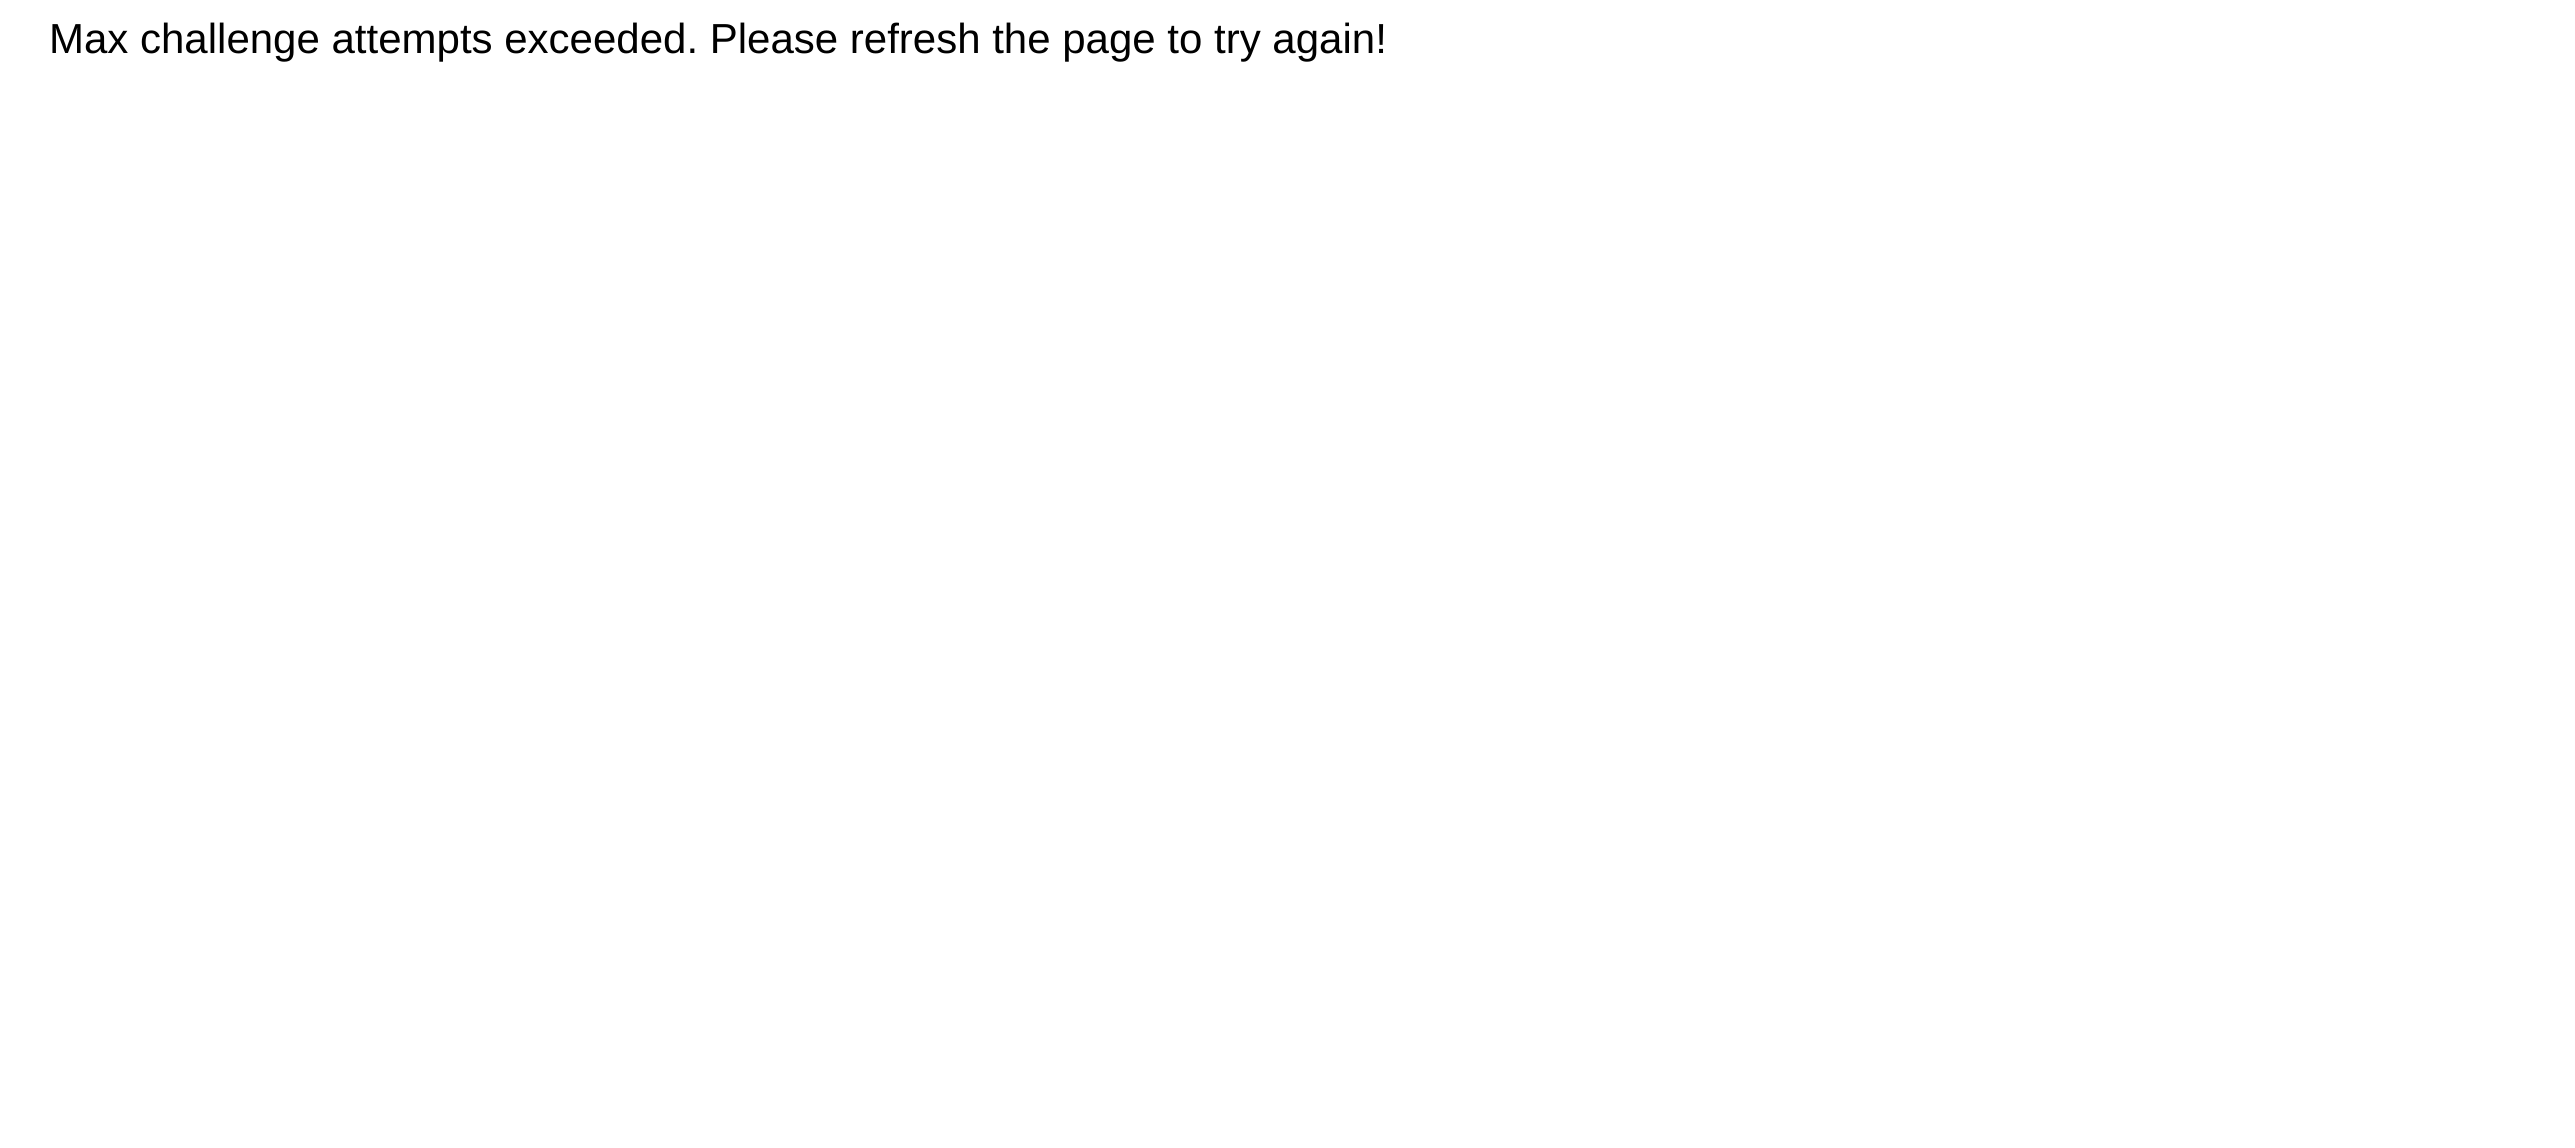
import math
import cairo


def draw(ctx):
	ctx.set_source_rgb(1, 1, 1)
	ctx.paint()
	ctx.select_font_face('Liberation Sans')
	ctx.set_font_size(42)
	ctx.set_source_rgb(0, 0, 0)
	ctx.move_to(49, 53)
	ctx.show_text('Max challenge attempts exceeded. Please refresh the page to try again!')


surface = cairo.ImageSurface(cairo.FORMAT_RGB24, 2575, 1148)
ctx = cairo.Context(surface)
options = cairo.FontOptions()
options.set_hint_metrics(cairo.HINT_METRICS_OFF)
options.set_hint_style(cairo.HINT_STYLE_NONE)
ctx.set_font_options(options)
ctx.set_miter_limit(4)
draw(ctx)
surface.write_to_png('image.png')
